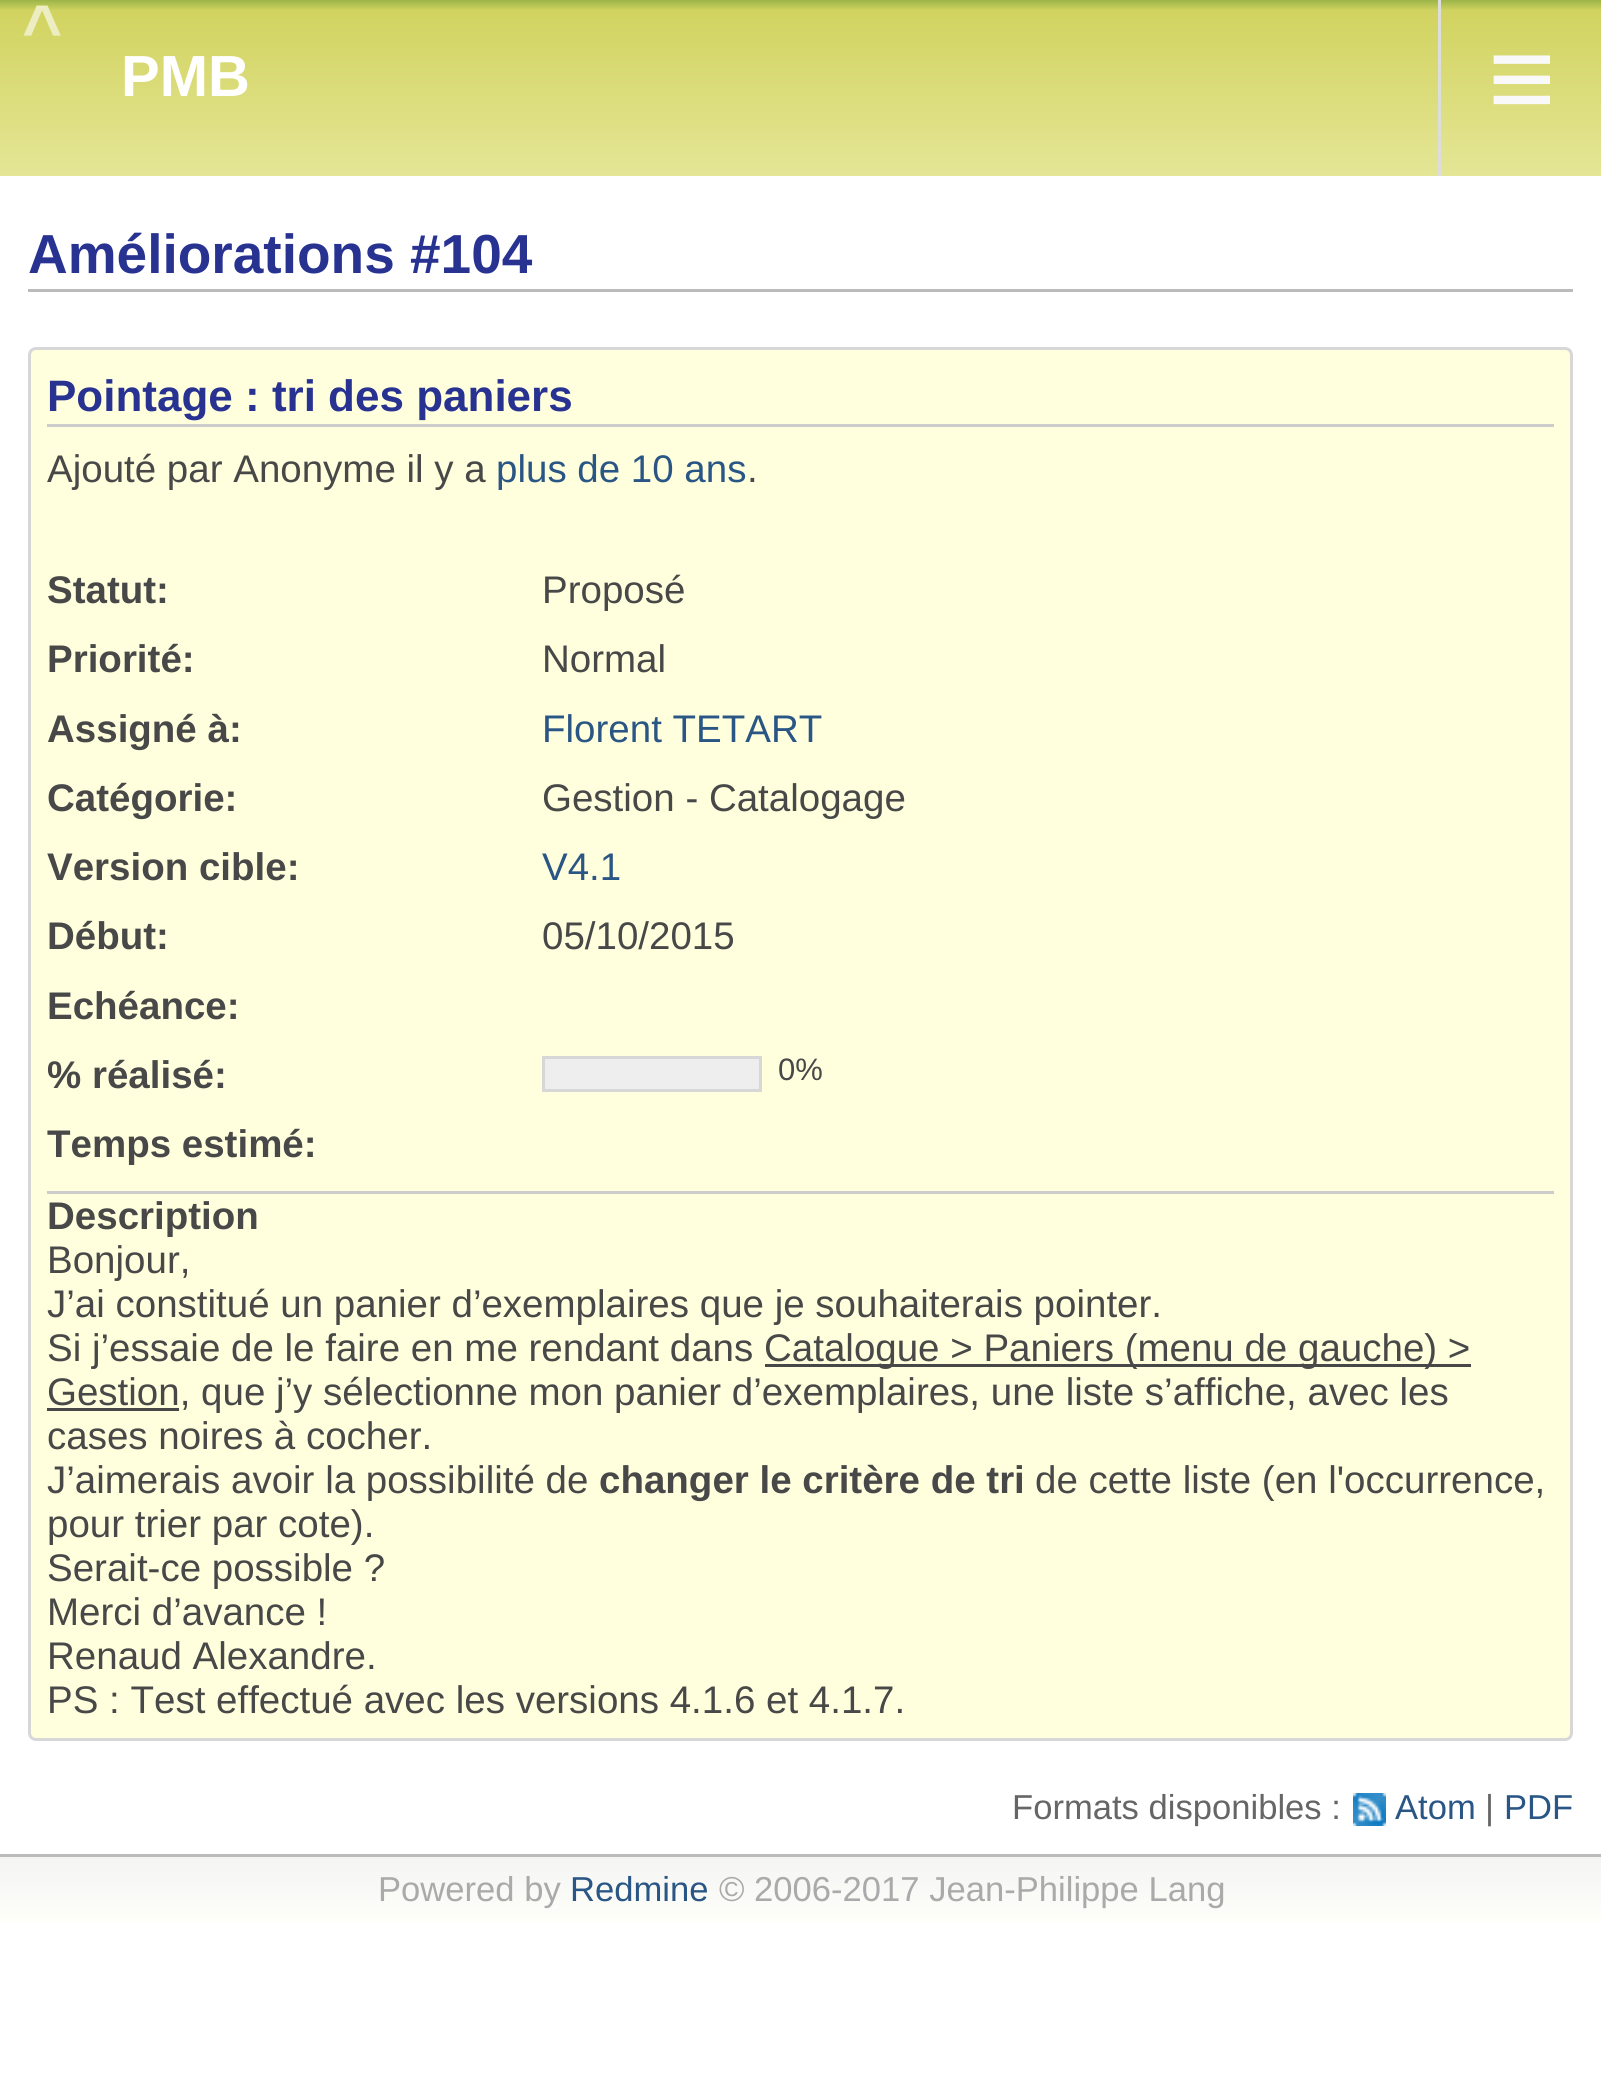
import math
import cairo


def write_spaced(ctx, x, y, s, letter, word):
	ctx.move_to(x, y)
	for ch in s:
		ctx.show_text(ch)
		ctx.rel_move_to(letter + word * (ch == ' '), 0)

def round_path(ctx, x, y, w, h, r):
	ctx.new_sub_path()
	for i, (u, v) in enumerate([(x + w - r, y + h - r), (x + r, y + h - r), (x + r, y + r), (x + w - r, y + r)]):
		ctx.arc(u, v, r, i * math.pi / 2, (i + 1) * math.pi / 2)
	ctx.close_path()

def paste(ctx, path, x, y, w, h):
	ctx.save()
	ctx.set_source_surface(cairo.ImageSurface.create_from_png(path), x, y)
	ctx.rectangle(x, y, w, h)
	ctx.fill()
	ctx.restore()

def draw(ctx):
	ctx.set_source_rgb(1, 1, 1)
	ctx.paint()
	gradient = cairo.LinearGradient(802, 0, 802, 176)
	gradient.add_color_stop_rgba(0, 0.608, 0.71, 0.282, 1)
	gradient.add_color_stop_rgba(0.06, 0.82, 0.827, 0.376, 1)
	gradient.add_color_stop_rgba(1, 0.898, 0.902, 0.588, 1)
	ctx.set_source(gradient)
	ctx.rectangle(0, 0, 1601, 176)
	ctx.fill()
	ctx.select_font_face('Liberation Sans', cairo.FONT_SLANT_NORMAL, cairo.FONT_WEIGHT_BOLD)
	ctx.set_font_size(69)
	ctx.set_source_rgb(0.925, 0.929, 0.753)
	write_spaced(ctx, 22, 53, '^', 10, 0)
	ctx.set_font_size(58)
	ctx.set_source_rgb(1, 1, 1)
	ctx.move_to(121, 96)
	ctx.show_text('PMB')
	ctx.set_source_rgb(0.867, 0.867, 0.867)
	ctx.rectangle(1438, 0, 3, 176)
	ctx.fill()
	ctx.select_font_face('Liberation Sans')
	ctx.set_font_size(116)
	ctx.set_source_rgb(0.973, 0.973, 0.973)
	ctx.move_to(1488, 118)
	ctx.show_text('≡')
	ctx.set_source_rgb(0.733, 0.733, 0.733)
	ctx.rectangle(28, 289, 1545, 3)
	ctx.fill()
	ctx.select_font_face('Liberation Sans', cairo.FONT_SLANT_NORMAL, cairo.FONT_WEIGHT_BOLD)
	ctx.set_font_size(55)
	ctx.set_source_rgb(0.157, 0.196, 0.569)
	ctx.move_to(28, 273)
	ctx.show_text('Améliorations #104')
	ctx.set_source_rgb(1, 1, 0.867)
	round_path(ctx, 29.5, 348.5, 1542, 1391, 6.5)
	ctx.fill_preserve()
	ctx.set_source_rgb(0.843, 0.843, 0.843)
	ctx.set_line_width(3)
	ctx.stroke()
	ctx.set_source_rgb(0.8, 0.8, 0.8)
	ctx.rectangle(47, 424, 1507, 3)
	ctx.fill()
	ctx.set_font_size(44)
	ctx.set_source_rgb(0.157, 0.196, 0.569)
	ctx.move_to(47, 411)
	ctx.show_text('Pointage : tri des paniers')
	ctx.select_font_face('Liberation Sans')
	ctx.set_font_size(38.5)
	ctx.set_source_rgb(0.282, 0.282, 0.282)
	ctx.move_to(47, 482)
	ctx.show_text('Ajouté par Anonyme il y a')
	ctx.set_source_rgb(0.165, 0.337, 0.522)
	ctx.move_to(496, 482)
	ctx.show_text('plus de 10 ans')
	ctx.set_source_rgb(0.282, 0.282, 0.282)
	ctx.move_to(747, 482)
	ctx.show_text('.')
	ctx.select_font_face('Liberation Sans', cairo.FONT_SLANT_NORMAL, cairo.FONT_WEIGHT_BOLD)
	ctx.move_to(47, 603)
	ctx.show_text('Statut:')
	ctx.select_font_face('Liberation Sans')
	ctx.move_to(542, 603)
	ctx.show_text('Proposé')
	ctx.select_font_face('Liberation Sans', cairo.FONT_SLANT_NORMAL, cairo.FONT_WEIGHT_BOLD)
	ctx.move_to(47, 672)
	ctx.show_text('Priorité:')
	ctx.select_font_face('Liberation Sans')
	ctx.move_to(542, 672)
	ctx.show_text('Normal')
	ctx.select_font_face('Liberation Sans', cairo.FONT_SLANT_NORMAL, cairo.FONT_WEIGHT_BOLD)
	ctx.move_to(47, 742)
	ctx.show_text('Assigné à:')
	ctx.select_font_face('Liberation Sans')
	ctx.set_source_rgb(0.165, 0.337, 0.522)
	ctx.move_to(542, 742)
	ctx.show_text('Florent TETART')
	ctx.select_font_face('Liberation Sans', cairo.FONT_SLANT_NORMAL, cairo.FONT_WEIGHT_BOLD)
	ctx.set_source_rgb(0.282, 0.282, 0.282)
	ctx.move_to(47, 811)
	ctx.show_text('Catégorie:')
	ctx.select_font_face('Liberation Sans')
	ctx.move_to(542, 811)
	ctx.show_text('Gestion - Catalogage')
	ctx.select_font_face('Liberation Sans', cairo.FONT_SLANT_NORMAL, cairo.FONT_WEIGHT_BOLD)
	ctx.move_to(47, 880)
	ctx.show_text('Version cible:')
	ctx.select_font_face('Liberation Sans')
	ctx.set_source_rgb(0.165, 0.337, 0.522)
	ctx.move_to(542, 880)
	ctx.show_text('V4.1')
	ctx.select_font_face('Liberation Sans', cairo.FONT_SLANT_NORMAL, cairo.FONT_WEIGHT_BOLD)
	ctx.set_source_rgb(0.282, 0.282, 0.282)
	ctx.move_to(47, 949)
	ctx.show_text('Début:')
	ctx.select_font_face('Liberation Sans')
	ctx.move_to(542, 949)
	ctx.show_text('05/10/2015')
	ctx.select_font_face('Liberation Sans', cairo.FONT_SLANT_NORMAL, cairo.FONT_WEIGHT_BOLD)
	ctx.move_to(47, 1019)
	ctx.show_text('Echéance:')
	ctx.move_to(47, 1088)
	ctx.show_text('% réalisé:')
	ctx.set_source_rgb(0.843, 0.843, 0.843)
	ctx.rectangle(542, 1056, 220, 3)
	ctx.rectangle(759, 1056, 3, 36)
	ctx.rectangle(542, 1089, 220, 3)
	ctx.rectangle(542, 1056, 3, 36)
	ctx.fill()
	ctx.set_source_rgb(0.933, 0.933, 0.933)
	ctx.rectangle(545, 1059, 214, 30)
	ctx.fill()
	ctx.select_font_face('Liberation Sans')
	ctx.set_font_size(31)
	ctx.set_source_rgb(0.282, 0.282, 0.282)
	ctx.move_to(778, 1080)
	ctx.show_text('0%')
	ctx.select_font_face('Liberation Sans', cairo.FONT_SLANT_NORMAL, cairo.FONT_WEIGHT_BOLD)
	ctx.set_font_size(38.5)
	ctx.move_to(47, 1157)
	ctx.show_text('Temps estimé:')
	ctx.set_source_rgb(0.8, 0.8, 0.8)
	ctx.rectangle(47, 1191, 1507, 3)
	ctx.fill()
	ctx.set_source_rgb(0.282, 0.282, 0.282)
	ctx.move_to(47, 1229)
	ctx.show_text('Description')
	ctx.select_font_face('Liberation Sans')
	for x, y, s in [
		(47, 1273, 'Bonjour,'),
		(47, 1317, 'J’ai constitué un panier d’exemplaires que je souhaiterais pointer.'),
		(47, 1361, 'Si j’essaie de le faire en me rendant dans'),
	]:
		ctx.move_to(x, y)
		ctx.show_text(s)
	ctx.rectangle(765, 1364, 706, 3)
	ctx.fill()
	ctx.move_to(764, 1361)
	ctx.show_text('Catalogue > Paniers (menu de gauche) >')
	ctx.rectangle(47, 1408, 132, 3)
	ctx.fill()
	for x, y, s in [
		(47, 1405, 'Gestion, que j’y sélectionne mon panier d’exemplaires, une liste s’affiche, avec les'),
		(47, 1449, 'cases noires à cocher.'),
		(47, 1493, 'J’aimerais avoir la possibilité de'),
	]:
		ctx.move_to(x, y)
		ctx.show_text(s)
	ctx.select_font_face('Liberation Sans', cairo.FONT_SLANT_NORMAL, cairo.FONT_WEIGHT_BOLD)
	ctx.move_to(599, 1493)
	ctx.show_text('changer le critère de tri')
	ctx.select_font_face('Liberation Sans')
	for x, y, s in [
		(1035, 1493, 'de cette liste (en l\'occurrence,'),
		(47, 1537, 'pour trier par cote).'),
		(47, 1581, 'Serait-ce possible ?'),
		(47, 1625, 'Merci d’avance !'),
		(47, 1669, 'Renaud Alexandre.'),
		(47, 1713, 'PS : Test effectué avec les versions 4.1.6 et 4.1.7.'),
	]:
		ctx.move_to(x, y)
		ctx.show_text(s)
	ctx.set_font_size(34.6)
	ctx.set_source_rgb(0.4, 0.4, 0.4)
	ctx.move_to(1012, 1819)
	ctx.show_text('Formats disponibles :')
	paste(ctx, 'media/1.png', 1353, 1793, 33, 33)
	ctx.set_source_rgb(0.165, 0.337, 0.522)
	ctx.move_to(1395, 1819)
	ctx.show_text('Atom')
	ctx.set_source_rgb(0.4, 0.4, 0.4)
	ctx.move_to(1485, 1819)
	ctx.show_text('|')
	ctx.set_source_rgb(0.165, 0.337, 0.522)
	ctx.move_to(1504, 1819)
	ctx.show_text('PDF')
	gradient = cairo.LinearGradient(802, 1856, 802, 1922)
	gradient.add_color_stop_rgba(0, 0.957, 0.957, 0.957, 1)
	gradient.add_color_stop_rgba(1, 0.996, 1, 0.976, 1)
	ctx.set_source(gradient)
	ctx.rectangle(0, 1857, 1601, 65)
	ctx.fill()
	ctx.set_source_rgb(0.733, 0.733, 0.733)
	ctx.rectangle(0, 1854, 1601, 3)
	ctx.fill()
	ctx.set_source_rgb(0.667, 0.667, 0.667)
	ctx.move_to(378, 1901)
	ctx.show_text('Powered by')
	ctx.set_source_rgb(0.165, 0.337, 0.522)
	ctx.move_to(570, 1901)
	ctx.show_text('Redmine')
	ctx.set_source_rgb(0.667, 0.667, 0.667)
	ctx.move_to(719, 1901)
	ctx.show_text('© 2006-2017 Jean-Philippe Lang')


surface = cairo.ImageSurface(cairo.FORMAT_RGB24, 1601, 2074)
ctx = cairo.Context(surface)
options = cairo.FontOptions()
options.set_hint_metrics(cairo.HINT_METRICS_OFF)
options.set_hint_style(cairo.HINT_STYLE_NONE)
ctx.set_font_options(options)
ctx.set_miter_limit(4)
draw(ctx)
surface.write_to_png('image.png')
